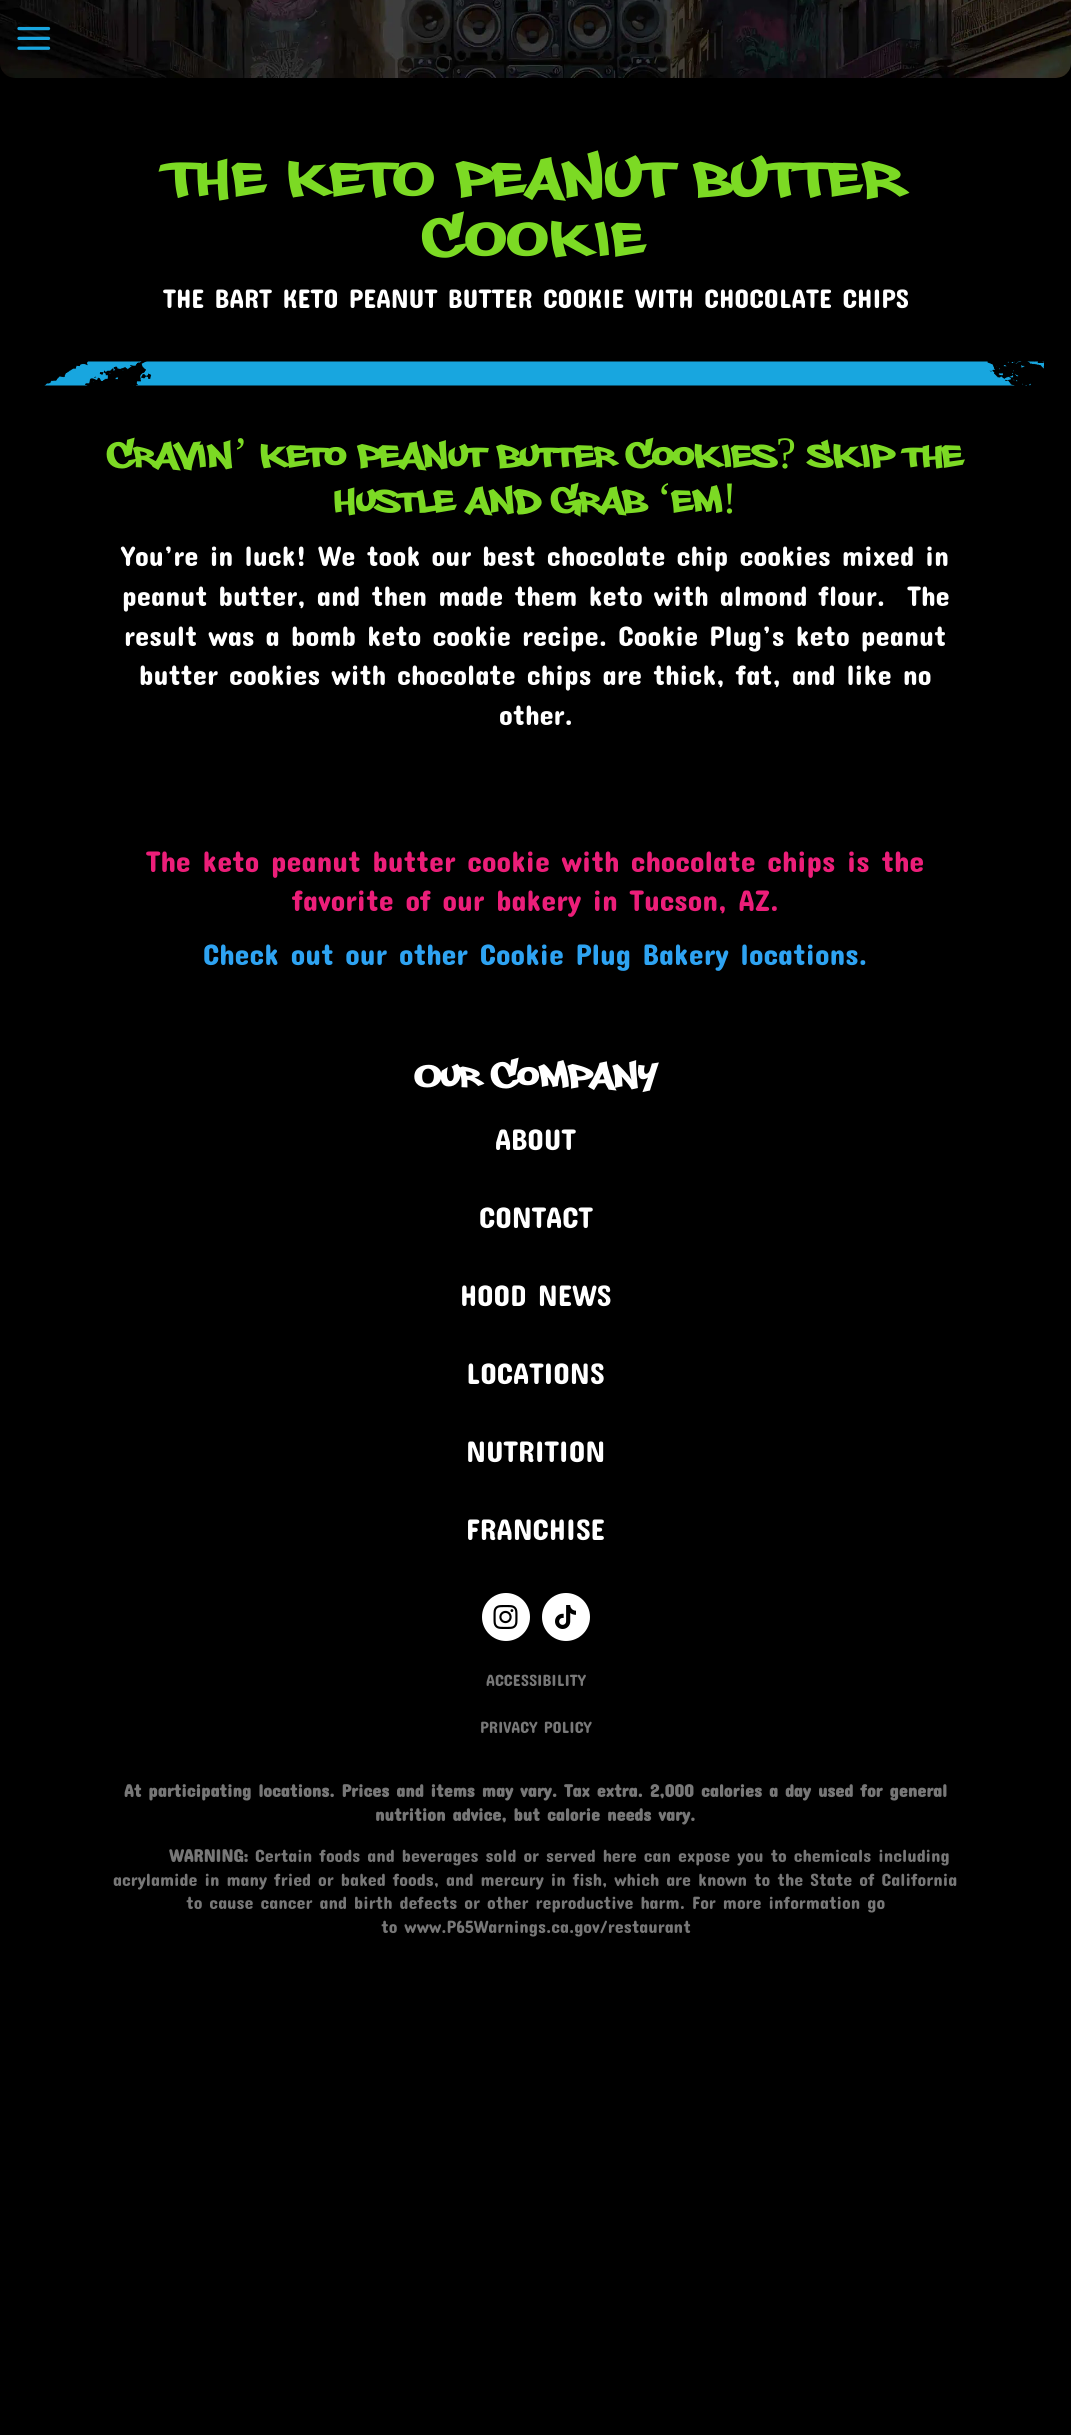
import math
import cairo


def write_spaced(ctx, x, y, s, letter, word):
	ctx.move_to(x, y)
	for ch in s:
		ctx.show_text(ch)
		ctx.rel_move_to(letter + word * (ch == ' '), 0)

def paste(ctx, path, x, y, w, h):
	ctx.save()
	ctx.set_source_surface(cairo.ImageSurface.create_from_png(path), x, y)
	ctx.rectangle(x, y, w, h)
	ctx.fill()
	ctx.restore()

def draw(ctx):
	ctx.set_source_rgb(0, 0, 0)
	ctx.paint()
	paste(ctx, 'media/1.png', 0, 0, 1071, 78)
	paste(ctx, 'media/2.png', 17, 26, 34, 24)
	ctx.select_font_face('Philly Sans')
	ctx.set_font_size(67.5)
	ctx.set_source_rgb(0.486, 0.855, 0.141)
	write_spaced(ctx, 167, 197, 'THE KETO PEANUT BUTTER', 3, 0)
	write_spaced(ctx, 424, 257, 'COOKIE', 3, 0)
	ctx.select_font_face('Concert One')
	ctx.set_font_size(27)
	ctx.set_source_rgb(1, 1, 1)
	ctx.move_to(163, 308)
	ctx.show_text('THE BART KETO PEANUT BUTTER COOKIE WITH CHOCOLATE CHIPS')
	paste(ctx, 'media/3.png', 44, 361, 1000, 25)
	ctx.select_font_face('Philly Sans')
	ctx.set_font_size(45)
	ctx.set_source_rgb(0.486, 0.855, 0.141)
	ctx.move_to(108, 468)
	ctx.show_text('Cravin')
	ctx.select_font_face('Liberation Serif')
	ctx.move_to(233, 468)
	ctx.show_text('’')
	ctx.select_font_face('Philly Sans')
	ctx.move_to(260, 468)
	ctx.show_text('Keto Peanut Butter Cookies')
	ctx.select_font_face('Liberation Serif')
	ctx.move_to(776, 468)
	ctx.show_text('?')
	ctx.select_font_face('Philly Sans')
	ctx.move_to(808, 468)
	ctx.show_text('Skip the')
	ctx.move_to(334, 513)
	ctx.show_text('Hustle and Grab')
	ctx.select_font_face('Liberation Serif')
	ctx.move_to(657, 513)
	ctx.show_text('‘')
	ctx.select_font_face('Philly Sans')
	ctx.move_to(672, 513)
	ctx.show_text('Em')
	ctx.select_font_face('Liberation Serif')
	ctx.move_to(722, 513)
	ctx.show_text('!')
	ctx.select_font_face('Concert One')
	ctx.set_font_size(28.5)
	ctx.set_source_rgb(1, 1, 1)
	for x, y, s in [
		(121, 566, 'You’re in luck! We took our best chocolate chip cookies mixed in'),
		(122, 606, 'peanut butter, and then made them keto with almond flour.  The'),
		(124, 646, 'result was a bomb keto cookie recipe. Cookie Plug’s keto peanut'),
		(139, 685, 'butter cookies with chocolate chips are thick, fat, and like no'),
		(499, 725, 'other.'),
	]:
		ctx.move_to(x, y)
		ctx.show_text(s)
	ctx.set_font_size(30)
	ctx.set_source_rgb(0.925, 0.118, 0.475)
	ctx.move_to(146, 872)
	ctx.show_text('The keto peanut butter cookie with chocolate chips is the')
	ctx.move_to(292, 911)
	ctx.show_text('favorite of our bakery in Tucson, AZ.')
	ctx.set_source_rgb(0.18, 0.639, 0.949)
	ctx.move_to(203, 965)
	ctx.show_text('Check out our other Cookie Plug Bakery locations.')
	ctx.select_font_face('Philly Sans')
	ctx.set_font_size(45)
	ctx.set_source_rgb(1, 1, 1)
	ctx.move_to(415, 1088)
	ctx.show_text('Our Company')
	ctx.select_font_face('Concert One')
	ctx.set_font_size(30)
	for x, y, s in [
		(495, 1150, 'ABOUT'),
		(479, 1228, 'CONTACT'),
		(460, 1306, 'HOOD NEWS'),
		(466, 1384, 'LOCATIONS'),
		(466, 1462, 'NUTRITION'),
		(466, 1540, 'FRANCHISE'),
	]:
		ctx.move_to(x, y)
		ctx.show_text(s)
	ctx.new_path()
	ctx.arc(506, 1617, 24, 0, 2 * math.pi)
	ctx.fill()
	paste(ctx, 'media/4.png', 493, 1605, 25, 24)
	ctx.arc(566, 1617, 24, 0, 2 * math.pi)
	ctx.fill()
	paste(ctx, 'media/5.png', 555, 1605, 21, 24)
	ctx.set_font_size(16.5)
	ctx.set_source_rgb(0.467, 0.467, 0.467)
	ctx.move_to(486, 1686)
	ctx.show_text('ACCESSIBILITY')
	ctx.move_to(480, 1733)
	ctx.show_text('PRIVACY POLICY')
	ctx.select_font_face('Concert One', cairo.FONT_SLANT_NORMAL, cairo.FONT_WEIGHT_BOLD)
	ctx.set_font_size(18)
	for x, y, s in [
		(124, 1797, 'At participating locations. Prices and items may vary. Tax extra. 2,000 calories a day used for general'),
		(375, 1821, 'nutrition advice, but calorie needs vary.'),
		(169, 1862, 'WARNING:'),
	]:
		ctx.move_to(x, y)
		ctx.show_text(s)
	ctx.select_font_face('Concert One')
	for x, y, s in [
		(255, 1862, 'Certain foods and beverages sold or served here can expose you to chemicals including'),
		(113, 1886, 'acrylamide in many fried or baked foods, and mercury in fish, which are known to the State of California'),
		(186, 1909, 'to cause cancer and birth defects or other reproductive harm. For more information go'),
		(381, 1933, 'to www.P65Warnings.ca.gov/restaurant'),
	]:
		ctx.move_to(x, y)
		ctx.show_text(s)


surface = cairo.ImageSurface(cairo.FORMAT_RGB24, 1071, 2435)
ctx = cairo.Context(surface)
options = cairo.FontOptions()
options.set_hint_metrics(cairo.HINT_METRICS_OFF)
options.set_hint_style(cairo.HINT_STYLE_NONE)
ctx.set_font_options(options)
ctx.set_miter_limit(4)
draw(ctx)
surface.write_to_png('image.png')
